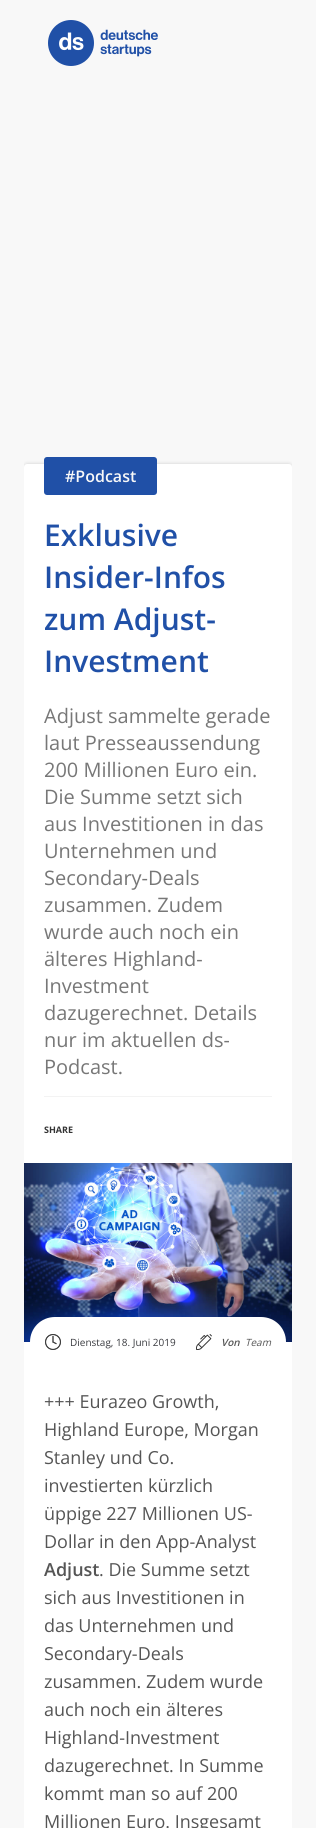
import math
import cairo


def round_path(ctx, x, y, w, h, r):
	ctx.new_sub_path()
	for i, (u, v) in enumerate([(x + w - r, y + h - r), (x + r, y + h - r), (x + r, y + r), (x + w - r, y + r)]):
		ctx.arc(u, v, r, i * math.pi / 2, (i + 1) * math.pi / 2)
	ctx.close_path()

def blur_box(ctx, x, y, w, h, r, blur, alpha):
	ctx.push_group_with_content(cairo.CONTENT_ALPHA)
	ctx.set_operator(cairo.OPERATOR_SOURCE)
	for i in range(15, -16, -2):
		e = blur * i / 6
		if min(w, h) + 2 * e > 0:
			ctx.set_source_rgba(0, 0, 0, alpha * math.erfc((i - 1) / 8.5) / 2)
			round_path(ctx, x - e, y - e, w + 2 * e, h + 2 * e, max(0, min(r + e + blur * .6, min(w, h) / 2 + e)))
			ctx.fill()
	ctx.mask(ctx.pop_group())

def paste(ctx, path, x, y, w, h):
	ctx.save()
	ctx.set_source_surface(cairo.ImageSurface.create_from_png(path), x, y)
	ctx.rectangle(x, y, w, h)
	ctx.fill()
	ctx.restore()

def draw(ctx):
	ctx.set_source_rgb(0.969, 0.969, 0.969)
	ctx.paint()
	paste(ctx, 'media/1.png', 48, 20, 110, 46)
	ctx.save()
	ctx.rectangle(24, 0, 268, 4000)
	ctx.clip()
	ctx.set_source_rgb(0, 0, 0)
	blur_box(ctx, 24, 464, 268, 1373, 3, 2, 0.16)
	ctx.restore()
	ctx.set_source_rgb(1, 1, 1)
	round_path(ctx, 24, 464, 268, 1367, 3)
	ctx.fill()
	ctx.set_source_rgb(0.125, 0.314, 0.655)
	round_path(ctx, 44, 457, 113, 38, 3)
	ctx.fill()
	ctx.select_font_face('Open Sans SemiBold')
	ctx.set_font_size(16)
	ctx.set_source_rgb(0.969, 0.969, 0.969)
	ctx.move_to(65, 482)
	ctx.show_text('#Podcast')
	ctx.set_font_size(30)
	ctx.set_source_rgb(0.125, 0.314, 0.655)
	for x, y, s in [
		(44, 546, 'Exklusive'),
		(44, 588, 'Insider-Infos'),
		(44, 630, 'zum Adjust-'),
		(44, 672, 'Investment'),
	]:
		ctx.move_to(x, y)
		ctx.show_text(s)
	ctx.set_source_rgb(0.953, 0.953, 0.953)
	ctx.rectangle(44, 1096, 228, 1)
	ctx.fill()
	ctx.select_font_face('Open Sans')
	ctx.set_font_size(20)
	ctx.set_source_rgb(0.467, 0.467, 0.467)
	for x, y, s in [
		(44, 723, 'Adjust sammelte gerade'),
		(44, 750, 'laut Presseaussendung'),
		(44, 777, '200 Millionen Euro ein.'),
		(44, 804, 'Die Summe setzt sich'),
		(44, 831, 'aus Investitionen in das'),
		(44, 858, 'Unternehmen und'),
		(44, 885, 'Secondary-Deals'),
		(44, 912, 'zusammen. Zudem'),
		(44, 939, 'wurde auch noch ein'),
		(44, 966, 'älteres Highland-'),
		(44, 993, 'Investment'),
		(44, 1020, 'dazugerechnet. Details'),
		(44, 1047, 'nur im aktuellen ds-'),
		(44, 1074, 'Podcast.'),
	]:
		ctx.move_to(x, y)
		ctx.show_text(s)
	ctx.select_font_face('Open Sans', cairo.FONT_SLANT_NORMAL, cairo.FONT_WEIGHT_BOLD)
	ctx.set_font_size(9)
	ctx.set_source_rgb(0.2, 0.2, 0.2)
	ctx.move_to(44, 1133)
	ctx.show_text('SHARE')
	paste(ctx, 'media/2.png', 24, 1163, 268, 179)
	ctx.set_source_rgb(1, 1, 1)
	ctx.new_path()
	ctx.move_to(55, 1317)
	ctx.line_to(261, 1317)
	ctx.curve_to(275, 1317, 286, 1328, 286, 1342)
	ctx.line_to(286, 1367)
	ctx.line_to(30, 1367)
	ctx.line_to(30, 1342)
	ctx.curve_to(30, 1328, 41, 1317, 55, 1317)
	ctx.close_path()
	ctx.fill()
	paste(ctx, 'media/3.png', 45, 1334, 16, 16)
	ctx.select_font_face('Open Sans')
	ctx.set_font_size(10)
	ctx.set_source_rgb(0.227, 0.231, 0.251)
	ctx.move_to(70, 1346)
	ctx.show_text('Dienstag, 18. Juni 2019')
	paste(ctx, 'media/4.png', 196, 1334, 16, 16)
	ctx.select_font_face('Open Sans SemiBold', cairo.FONT_SLANT_ITALIC)
	ctx.set_source_rgb(0.333, 0.333, 0.333)
	ctx.move_to(221, 1346)
	ctx.show_text('Von')
	ctx.select_font_face('Open Sans', cairo.FONT_SLANT_ITALIC)
	ctx.move_to(245, 1346)
	ctx.show_text('Team')
	ctx.select_font_face('Open Sans')
	ctx.set_font_size(18)
	for x, y, s in [
		(44, 1408, '+++ Eurazeo Growth,'),
		(44, 1436, 'Highland Europe, Morgan'),
		(44, 1464, 'Stanley und Co.'),
		(44, 1492, 'investierten kürzlich'),
		(44, 1520, 'üppige 227 Millionen US-'),
		(44, 1548, 'Dollar in den App-Analyst'),
	]:
		ctx.move_to(x, y)
		ctx.show_text(s)
	ctx.select_font_face('Open Sans SemiBold')
	ctx.move_to(44, 1576)
	ctx.show_text('Adjust')
	ctx.select_font_face('Open Sans')
	for x, y, s in [
		(99, 1576, '. Die Summe setzt'),
		(44, 1604, 'sich aus Investitionen in'),
		(44, 1632, 'das Unternehmen und'),
		(44, 1660, 'Secondary-Deals'),
		(44, 1688, 'zusammen. Zudem wurde'),
		(44, 1716, 'auch noch ein älteres'),
		(44, 1744, 'Highland-Investment'),
		(44, 1772, 'dazugerechnet. In Summe'),
		(44, 1800, 'kommt man so auf 200'),
		(44, 1828, 'Millionen Euro. Insgesamt'),
	]:
		ctx.move_to(x, y)
		ctx.show_text(s)


surface = cairo.ImageSurface(cairo.FORMAT_RGB24, 316, 1828)
ctx = cairo.Context(surface)
options = cairo.FontOptions()
options.set_hint_metrics(cairo.HINT_METRICS_OFF)
options.set_hint_style(cairo.HINT_STYLE_NONE)
ctx.set_font_options(options)
ctx.set_miter_limit(4)
draw(ctx)
surface.write_to_png('image.png')
